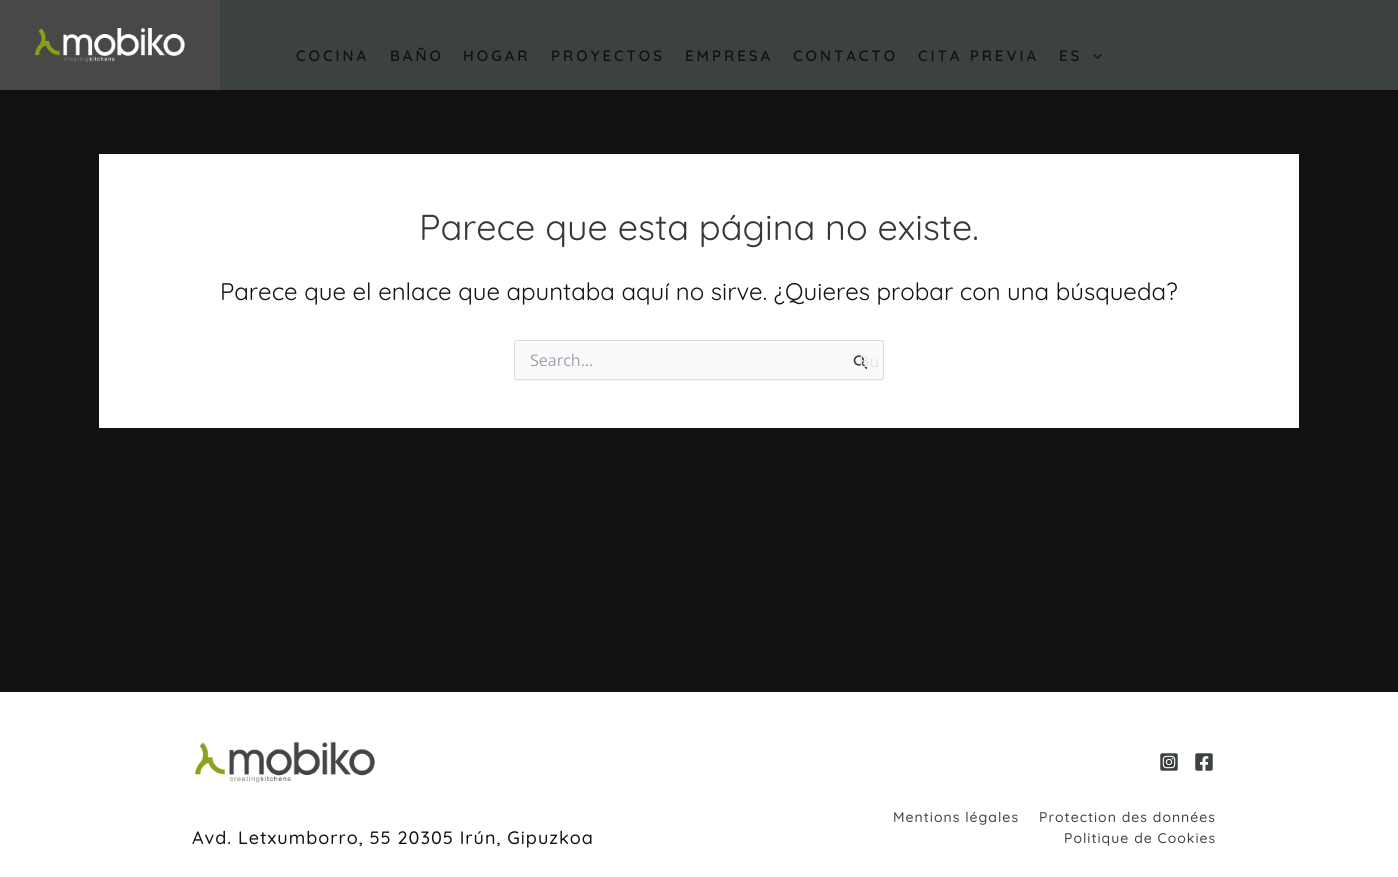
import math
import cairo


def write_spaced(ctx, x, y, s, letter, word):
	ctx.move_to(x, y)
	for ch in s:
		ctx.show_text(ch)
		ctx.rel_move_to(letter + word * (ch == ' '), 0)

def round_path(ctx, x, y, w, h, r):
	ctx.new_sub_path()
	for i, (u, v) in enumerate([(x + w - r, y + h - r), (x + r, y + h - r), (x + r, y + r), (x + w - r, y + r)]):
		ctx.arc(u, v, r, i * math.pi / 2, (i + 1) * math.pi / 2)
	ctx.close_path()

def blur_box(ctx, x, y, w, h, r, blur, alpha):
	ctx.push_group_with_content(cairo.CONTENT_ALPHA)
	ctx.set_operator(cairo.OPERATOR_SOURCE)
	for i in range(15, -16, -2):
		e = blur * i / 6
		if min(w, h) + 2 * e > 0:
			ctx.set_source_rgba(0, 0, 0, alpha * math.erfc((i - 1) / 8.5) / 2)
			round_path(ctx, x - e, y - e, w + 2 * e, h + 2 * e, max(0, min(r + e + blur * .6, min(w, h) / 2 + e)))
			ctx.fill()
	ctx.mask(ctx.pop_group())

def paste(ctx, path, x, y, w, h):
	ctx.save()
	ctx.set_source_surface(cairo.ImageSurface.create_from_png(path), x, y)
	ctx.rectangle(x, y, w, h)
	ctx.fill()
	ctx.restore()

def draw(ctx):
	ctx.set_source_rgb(0.067, 0.067, 0.067)
	ctx.paint()
	ctx.set_source_rgb(0.235, 0.259, 0.239)
	ctx.rectangle(220, 0, 1178, 90)
	ctx.fill()
	ctx.set_source_rgb(0.29, 0.278, 0.278)
	ctx.rectangle(0, 0, 220, 90)
	ctx.fill()
	paste(ctx, 'media/1.png', 35, 28, 150, 34)
	ctx.select_font_face('Quicksand SemiBold')
	ctx.set_font_size(15)
	ctx.set_source_rgb(0.067, 0.067, 0.067)
	for x, y, s in [
		(296, 61, 'COCINA'),
		(390, 61, 'BAÑO'),
		(463, 61, 'HOGAR'),
		(551, 61, 'PROYECTOS'),
		(685, 61, 'EMPRESA'),
		(793, 61, 'CONTACTO'),
		(918, 61, 'CITA PREVIA'),
		(1059, 61, 'ES'),
	]:
		write_spaced(ctx, x, y, s, 3, 0)
	paste(ctx, 'media/2.png', 1093, 54, 9, 5)
	ctx.set_source_rgb(1, 1, 1)
	ctx.rectangle(99, 154, 1200, 274)
	ctx.fill()
	ctx.select_font_face('Quicksand')
	ctx.set_font_size(36)
	ctx.set_source_rgb(0.216, 0.216, 0.216)
	ctx.move_to(419, 240)
	ctx.show_text('Parece que esta página no existe.')
	ctx.set_font_size(24)
	ctx.set_source_rgb(0.067, 0.067, 0.067)
	ctx.move_to(220, 300)
	ctx.show_text('Parece que el enlace que apuntaba aquí no sirve. ¿Quieres probar con una búsqueda?')
	ctx.set_source_rgb(0, 0, 0)
	blur_box(ctx, 514, 341, 370, 40, 2, 1, 0.05)
	ctx.set_source_rgb(0.98, 0.98, 0.98)
	round_path(ctx, 514.5, 340.5, 369, 39, 1.5)
	ctx.fill_preserve()
	ctx.set_source_rgb(0.867, 0.867, 0.867)
	ctx.set_line_width(1)
	ctx.stroke()
	ctx.select_font_face('Open Sans')
	ctx.set_font_size(16)
	ctx.set_source_rgb(0.612, 0.639, 0.686)
	ctx.move_to(530, 366)
	ctx.show_text('Search...')
	paste(ctx, 'media/3.png', 853, 355, 14, 15)
	ctx.set_source_rgb(0.894, 0.894, 0.894)
	ctx.move_to(859, 367)
	ctx.show_text('Bu')
	ctx.set_source_rgb(1, 1, 1)
	ctx.rectangle(0, 692, 1398, 185)
	ctx.fill()
	paste(ctx, 'media/4.png', 194, 741, 181, 42)
	paste(ctx, 'media/5.png', 1160, 753, 18, 18)
	paste(ctx, 'media/6.png', 1195, 753, 18, 18)
	ctx.select_font_face('Quicksand Medium')
	ctx.set_font_size(18)
	ctx.set_source_rgb(0.067, 0.067, 0.067)
	write_spaced(ctx, 192, 844, 'Avd. Letxumborro, 55 20305 Irún, Gipuzkoa', 1, 0)
	ctx.set_font_size(14)
	ctx.set_source_rgb(0.235, 0.263, 0.239)
	for x, y, s in [
		(893, 822, 'Mentions légales'),
		(1039, 822, 'Protection des données'),
		(1064, 843, 'Politique de Cookies'),
	]:
		write_spaced(ctx, x, y, s, 1, 0)


surface = cairo.ImageSurface(cairo.FORMAT_RGB24, 1398, 877)
ctx = cairo.Context(surface)
options = cairo.FontOptions()
options.set_hint_metrics(cairo.HINT_METRICS_OFF)
options.set_hint_style(cairo.HINT_STYLE_NONE)
ctx.set_font_options(options)
ctx.set_miter_limit(4)
draw(ctx)
surface.write_to_png('image.png')
